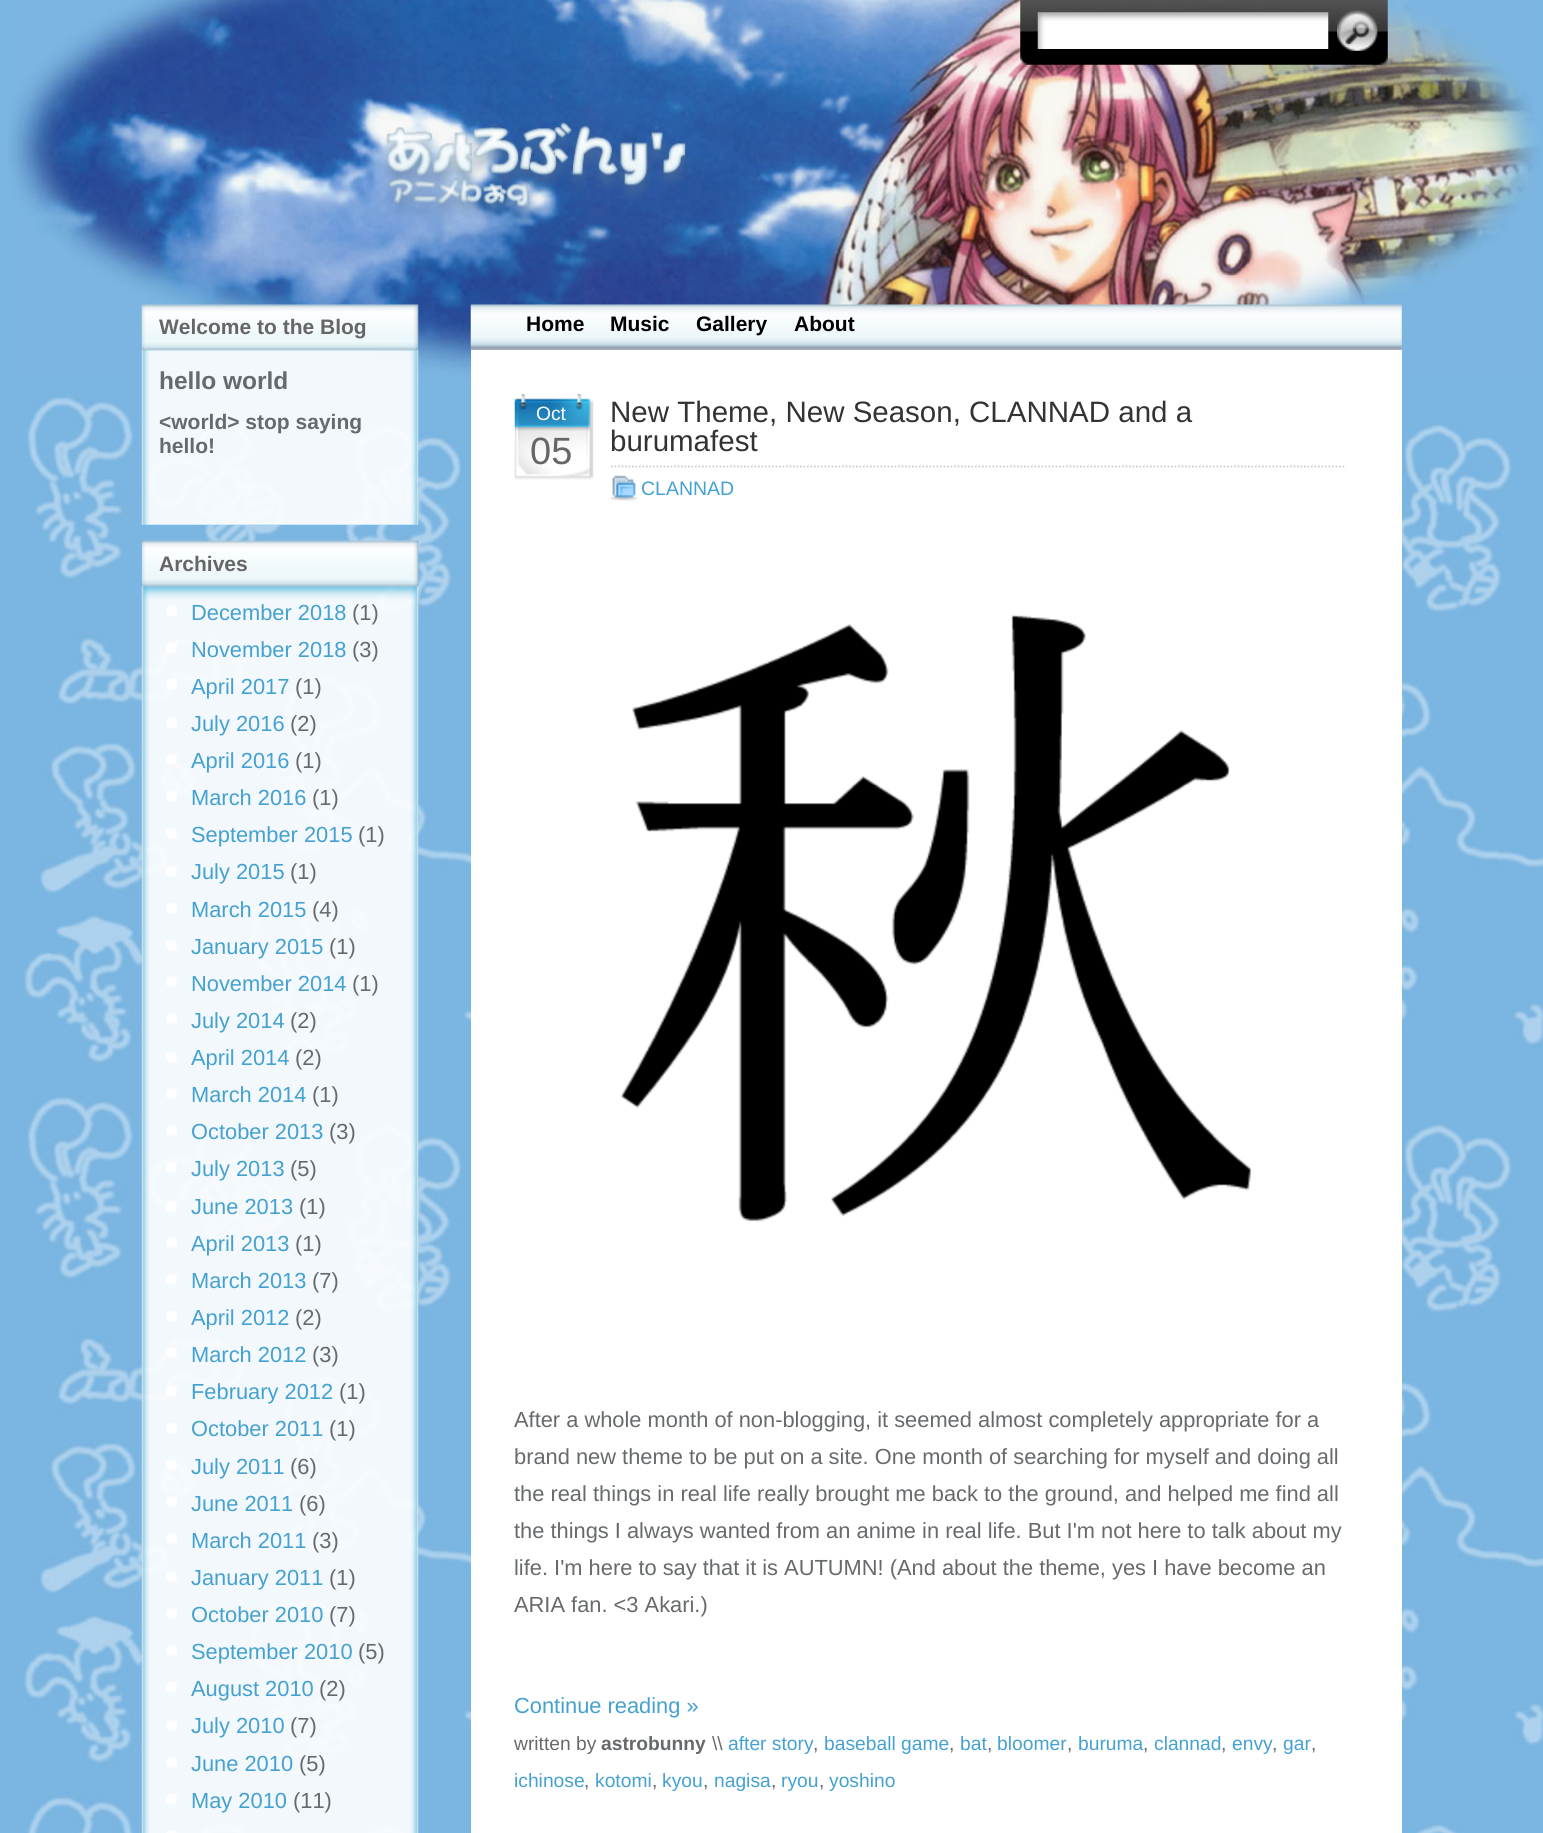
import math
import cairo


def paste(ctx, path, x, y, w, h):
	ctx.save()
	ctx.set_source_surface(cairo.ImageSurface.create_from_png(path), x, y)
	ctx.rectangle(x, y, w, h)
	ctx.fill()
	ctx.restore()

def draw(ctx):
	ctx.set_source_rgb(0.482, 0.714, 0.886)
	ctx.paint()
	paste(ctx, 'media/1.png', 8, 0, 1532, 380)
	paste(ctx, 'media/2.png', 24, 397, 1519, 1436)
	paste(ctx, 'media/3.png', 1020, 0, 368, 65)
	paste(ctx, 'media/4.png', 1037, 12, 292, 37)
	paste(ctx, 'media/5.png', 1337, 10, 41, 41)
	paste(ctx, 'media/6.png', 141, 304, 278, 46)
	ctx.select_font_face('Liberation Sans', cairo.FONT_SLANT_NORMAL, cairo.FONT_WEIGHT_BOLD)
	ctx.set_font_size(21)
	ctx.set_source_rgb(0.4, 0.4, 0.4)
	ctx.move_to(159, 334)
	ctx.show_text('Welcome to the Blog')
	paste(ctx, 'media/7.png', 141, 350, 278, 175)
	ctx.set_font_size(24.5)
	ctx.set_source_rgb(0.404, 0.416, 0.424)
	ctx.move_to(159, 389)
	ctx.show_text('hello world')
	ctx.set_font_size(21)
	ctx.move_to(159, 429)
	ctx.show_text('<world> stop saying')
	ctx.move_to(159, 453)
	ctx.show_text('hello!')
	paste(ctx, 'media/9.png', 141, 586, 278, 1247)
	paste(ctx, 'media/8.png', 141, 540, 278, 47)
	ctx.set_source_rgb(0.4, 0.4, 0.4)
	ctx.move_to(159, 571)
	ctx.show_text('Archives')
	paste(ctx, 'media/10.png', 166, 605, 11, 11)
	ctx.select_font_face('Liberation Sans')
	ctx.set_font_size(21.85)
	ctx.set_source_rgb(0.267, 0.631, 0.816)
	ctx.move_to(191, 620)
	ctx.show_text('December 2018')
	ctx.set_source_rgb(0.404, 0.416, 0.424)
	ctx.move_to(352, 620)
	ctx.show_text('(1)')
	paste(ctx, 'media/11.png', 166, 642, 11, 11)
	ctx.set_source_rgb(0.267, 0.631, 0.816)
	ctx.move_to(191, 657)
	ctx.show_text('November 2018')
	ctx.set_source_rgb(0.404, 0.416, 0.424)
	ctx.move_to(352, 657)
	ctx.show_text('(3)')
	paste(ctx, 'media/12.png', 166, 679, 11, 11)
	ctx.set_source_rgb(0.267, 0.631, 0.816)
	ctx.move_to(191, 694)
	ctx.show_text('April 2017')
	ctx.set_source_rgb(0.404, 0.416, 0.424)
	ctx.move_to(295, 694)
	ctx.show_text('(1)')
	paste(ctx, 'media/10.png', 166, 717, 11, 11)
	ctx.set_source_rgb(0.267, 0.631, 0.816)
	ctx.move_to(191, 731)
	ctx.show_text('July 2016')
	ctx.set_source_rgb(0.404, 0.416, 0.424)
	ctx.move_to(290, 731)
	ctx.show_text('(2)')
	paste(ctx, 'media/13.png', 166, 754, 11, 11)
	ctx.set_source_rgb(0.267, 0.631, 0.816)
	ctx.move_to(191, 768)
	ctx.show_text('April 2016')
	ctx.set_source_rgb(0.404, 0.416, 0.424)
	ctx.move_to(295, 768)
	ctx.show_text('(1)')
	paste(ctx, 'media/14.png', 166, 791, 11, 11)
	ctx.set_source_rgb(0.267, 0.631, 0.816)
	ctx.move_to(191, 805)
	ctx.show_text('March 2016')
	ctx.set_source_rgb(0.404, 0.416, 0.424)
	ctx.move_to(312, 805)
	ctx.show_text('(1)')
	paste(ctx, 'media/15.png', 166, 827, 11, 12)
	ctx.set_source_rgb(0.267, 0.631, 0.816)
	ctx.move_to(191, 842)
	ctx.show_text('September 2015')
	ctx.set_source_rgb(0.404, 0.416, 0.424)
	ctx.move_to(358, 842)
	ctx.show_text('(1)')
	paste(ctx, 'media/16.png', 166, 866, 11, 11)
	ctx.set_source_rgb(0.267, 0.631, 0.816)
	ctx.move_to(191, 879)
	ctx.show_text('July 2015')
	ctx.set_source_rgb(0.404, 0.416, 0.424)
	ctx.move_to(290, 879)
	ctx.show_text('(1)')
	paste(ctx, 'media/17.png', 166, 903, 11, 11)
	ctx.set_source_rgb(0.267, 0.631, 0.816)
	ctx.move_to(191, 917)
	ctx.show_text('March 2015')
	ctx.set_source_rgb(0.404, 0.416, 0.424)
	ctx.move_to(312, 917)
	ctx.show_text('(4)')
	paste(ctx, 'media/15.png', 166, 939, 11, 12)
	ctx.set_source_rgb(0.267, 0.631, 0.816)
	ctx.move_to(191, 954)
	ctx.show_text('January 2015')
	ctx.set_source_rgb(0.404, 0.416, 0.424)
	ctx.move_to(329, 954)
	ctx.show_text('(1)')
	paste(ctx, 'media/10.png', 166, 976, 11, 11)
	ctx.set_source_rgb(0.267, 0.631, 0.816)
	ctx.move_to(191, 991)
	ctx.show_text('November 2014')
	ctx.set_source_rgb(0.404, 0.416, 0.424)
	ctx.move_to(352, 991)
	ctx.show_text('(1)')
	paste(ctx, 'media/18.png', 166, 1013, 11, 11)
	ctx.set_source_rgb(0.267, 0.631, 0.816)
	ctx.move_to(191, 1028)
	ctx.show_text('July 2014')
	ctx.set_source_rgb(0.404, 0.416, 0.424)
	ctx.move_to(290, 1028)
	ctx.show_text('(2)')
	paste(ctx, 'media/19.png', 166, 1051, 11, 12)
	ctx.set_source_rgb(0.267, 0.631, 0.816)
	ctx.move_to(191, 1065)
	ctx.show_text('April 2014')
	ctx.set_source_rgb(0.404, 0.416, 0.424)
	ctx.move_to(295, 1065)
	ctx.show_text('(2)')
	paste(ctx, 'media/10.png', 166, 1088, 11, 11)
	ctx.set_source_rgb(0.267, 0.631, 0.816)
	ctx.move_to(191, 1102)
	ctx.show_text('March 2014')
	ctx.set_source_rgb(0.404, 0.416, 0.424)
	ctx.move_to(312, 1102)
	ctx.show_text('(1)')
	paste(ctx, 'media/18.png', 166, 1125, 11, 11)
	ctx.set_source_rgb(0.267, 0.631, 0.816)
	ctx.move_to(191, 1139)
	ctx.show_text('October 2013')
	ctx.set_source_rgb(0.404, 0.416, 0.424)
	ctx.move_to(329, 1139)
	ctx.show_text('(3)')
	paste(ctx, 'media/20.png', 166, 1162, 11, 11)
	ctx.set_source_rgb(0.267, 0.631, 0.816)
	ctx.move_to(191, 1176)
	ctx.show_text('July 2013')
	ctx.set_source_rgb(0.404, 0.416, 0.424)
	ctx.move_to(290, 1176)
	ctx.show_text('(5)')
	paste(ctx, 'media/21.png', 166, 1201, 11, 12)
	ctx.set_source_rgb(0.267, 0.631, 0.816)
	ctx.move_to(191, 1214)
	ctx.show_text('June 2013')
	ctx.set_source_rgb(0.404, 0.416, 0.424)
	ctx.move_to(299, 1214)
	ctx.show_text('(1)')
	paste(ctx, 'media/18.png', 166, 1237, 11, 11)
	ctx.set_source_rgb(0.267, 0.631, 0.816)
	ctx.move_to(191, 1251)
	ctx.show_text('April 2013')
	ctx.set_source_rgb(0.404, 0.416, 0.424)
	ctx.move_to(295, 1251)
	ctx.show_text('(1)')
	paste(ctx, 'media/17.png', 166, 1274, 11, 11)
	ctx.set_source_rgb(0.267, 0.631, 0.816)
	ctx.move_to(191, 1288)
	ctx.show_text('March 2013')
	ctx.set_source_rgb(0.404, 0.416, 0.424)
	ctx.move_to(312, 1288)
	ctx.show_text('(7)')
	paste(ctx, 'media/15.png', 166, 1310, 11, 12)
	ctx.set_source_rgb(0.267, 0.631, 0.816)
	ctx.move_to(191, 1325)
	ctx.show_text('April 2012')
	ctx.set_source_rgb(0.404, 0.416, 0.424)
	ctx.move_to(295, 1325)
	ctx.show_text('(2)')
	paste(ctx, 'media/22.png', 166, 1347, 11, 11)
	ctx.set_source_rgb(0.267, 0.631, 0.816)
	ctx.move_to(191, 1362)
	ctx.show_text('March 2012')
	ctx.set_source_rgb(0.404, 0.416, 0.424)
	ctx.move_to(312, 1362)
	ctx.show_text('(3)')
	paste(ctx, 'media/23.png', 166, 1386, 11, 11)
	ctx.set_source_rgb(0.267, 0.631, 0.816)
	ctx.move_to(191, 1399)
	ctx.show_text('February 2012')
	ctx.set_source_rgb(0.404, 0.416, 0.424)
	ctx.move_to(339, 1399)
	ctx.show_text('(1)')
	paste(ctx, 'media/15.png', 166, 1422, 11, 12)
	ctx.set_source_rgb(0.267, 0.631, 0.816)
	ctx.move_to(191, 1436)
	ctx.show_text('October 2011')
	ctx.set_source_rgb(0.404, 0.416, 0.424)
	ctx.move_to(329, 1436)
	ctx.show_text('(1)')
	paste(ctx, 'media/24.png', 166, 1459, 11, 11)
	ctx.set_source_rgb(0.267, 0.631, 0.816)
	ctx.move_to(191, 1474)
	ctx.show_text('July 2011')
	ctx.set_source_rgb(0.404, 0.416, 0.424)
	ctx.move_to(290, 1474)
	ctx.show_text('(6)')
	paste(ctx, 'media/25.png', 166, 1496, 11, 11)
	ctx.set_source_rgb(0.267, 0.631, 0.816)
	ctx.move_to(191, 1511)
	ctx.show_text('June 2011')
	ctx.set_source_rgb(0.404, 0.416, 0.424)
	ctx.move_to(299, 1511)
	ctx.show_text('(6)')
	paste(ctx, 'media/17.png', 166, 1533, 11, 11)
	ctx.set_source_rgb(0.267, 0.631, 0.816)
	ctx.move_to(191, 1548)
	ctx.show_text('March 2011')
	ctx.set_source_rgb(0.404, 0.416, 0.424)
	ctx.move_to(312, 1548)
	ctx.show_text('(3)')
	paste(ctx, 'media/26.png', 166, 1571, 11, 11)
	ctx.set_source_rgb(0.267, 0.631, 0.816)
	ctx.move_to(191, 1585)
	ctx.show_text('January 2011')
	ctx.set_source_rgb(0.404, 0.416, 0.424)
	ctx.move_to(329, 1585)
	ctx.show_text('(1)')
	paste(ctx, 'media/18.png', 166, 1608, 11, 11)
	ctx.set_source_rgb(0.267, 0.631, 0.816)
	ctx.move_to(191, 1622)
	ctx.show_text('October 2010')
	ctx.set_source_rgb(0.404, 0.416, 0.424)
	ctx.move_to(329, 1622)
	ctx.show_text('(7)')
	paste(ctx, 'media/17.png', 166, 1645, 11, 11)
	ctx.set_source_rgb(0.267, 0.631, 0.816)
	ctx.move_to(191, 1659)
	ctx.show_text('September 2010')
	ctx.set_source_rgb(0.404, 0.416, 0.424)
	ctx.move_to(358, 1659)
	ctx.show_text('(5)')
	paste(ctx, 'media/15.png', 166, 1681, 11, 12)
	ctx.set_source_rgb(0.267, 0.631, 0.816)
	ctx.move_to(191, 1696)
	ctx.show_text('August 2010')
	ctx.set_source_rgb(0.404, 0.416, 0.424)
	ctx.move_to(319, 1696)
	ctx.show_text('(2)')
	paste(ctx, 'media/18.png', 166, 1720, 11, 11)
	ctx.set_source_rgb(0.267, 0.631, 0.816)
	ctx.move_to(191, 1733)
	ctx.show_text('July 2010')
	ctx.set_source_rgb(0.404, 0.416, 0.424)
	ctx.move_to(290, 1733)
	ctx.show_text('(7)')
	paste(ctx, 'media/17.png', 166, 1757, 11, 11)
	ctx.set_source_rgb(0.267, 0.631, 0.816)
	ctx.move_to(191, 1771)
	ctx.show_text('June 2010')
	ctx.set_source_rgb(0.404, 0.416, 0.424)
	ctx.move_to(299, 1771)
	ctx.show_text('(5)')
	paste(ctx, 'media/15.png', 166, 1793, 11, 12)
	ctx.set_source_rgb(0.267, 0.631, 0.816)
	ctx.move_to(191, 1808)
	ctx.show_text('May 2010')
	ctx.set_source_rgb(0.404, 0.416, 0.424)
	ctx.move_to(293, 1808)
	ctx.show_text('(11)')
	paste(ctx, 'media/27.png', 166, 1830, 11, 3)
	paste(ctx, 'media/28.png', 470, 304, 932, 46)
	ctx.select_font_face('Liberation Sans', cairo.FONT_SLANT_NORMAL, cairo.FONT_WEIGHT_BOLD)
	ctx.set_font_size(21)
	ctx.set_source_rgb(0, 0, 0)
	for x, y, s in [
		(526, 331, 'Home'),
		(610, 331, 'Music'),
		(696, 331, 'Gallery'),
		(794, 331, 'About'),
	]:
		ctx.move_to(x, y)
		ctx.show_text(s)
	ctx.set_source_rgb(1, 1, 1)
	ctx.rectangle(471, 350, 931, 1483)
	ctx.fill()
	paste(ctx, 'media/29.png', 514, 393, 80, 87)
	ctx.select_font_face('Liberation Sans')
	ctx.set_font_size(19.25)
	ctx.move_to(536, 420)
	ctx.show_text('Oct')
	ctx.set_font_size(38)
	ctx.set_source_rgb(0.4, 0.4, 0.4)
	ctx.move_to(530, 464)
	ctx.show_text('05')
	ctx.new_path()
	ctx.move_to(611, 466.5)
	ctx.line_to(1346, 466.5)
	ctx.set_source_rgb(0.8, 0.8, 0.8)
	ctx.set_line_width(1.8)
	ctx.set_dash([1.75, 1.75])
	ctx.stroke()
	ctx.set_font_size(29.5)
	ctx.set_source_rgb(0.2, 0.2, 0.2)
	ctx.move_to(610, 422)
	ctx.show_text('New Theme, New Season, CLANNAD and a')
	ctx.move_to(610, 451)
	ctx.show_text('burumafest')
	paste(ctx, 'media/30.png', 610, 475, 27, 26)
	ctx.set_font_size(19.5)
	ctx.set_source_rgb(0.267, 0.631, 0.816)
	ctx.move_to(641, 495)
	ctx.show_text('CLANNAD')
	paste(ctx, 'media/31.png', 620, 614, 631, 608)
	ctx.set_font_size(21.85)
	ctx.set_source_rgb(0.404, 0.416, 0.424)
	for x, y, s in [
		(514, 1427, 'After a whole month of non-blogging, it seemed almost completely appropriate for a'),
		(514, 1464, 'brand new theme to be put on a site. One month of searching for myself and doing all'),
		(514, 1501, 'the real things in real life really brought me back to the ground, and helped me find all'),
		(514, 1538, 'the things I always wanted from an anime in real life. But I\'m not here to talk about my'),
		(514, 1575, 'life. I\'m here to say that it is AUTUMN! (And about the theme, yes I have become an'),
		(514, 1612, 'ARIA fan. <3 Akari.)'),
	]:
		ctx.move_to(x, y)
		ctx.show_text(s)
	ctx.set_source_rgb(0.267, 0.631, 0.816)
	ctx.move_to(514, 1713)
	ctx.show_text('Continue reading »')
	ctx.set_font_size(19.25)
	ctx.set_source_rgb(0.404, 0.416, 0.424)
	ctx.move_to(514, 1750)
	ctx.show_text('written by')
	ctx.select_font_face('Liberation Sans', cairo.FONT_SLANT_NORMAL, cairo.FONT_WEIGHT_BOLD)
	ctx.move_to(601, 1750)
	ctx.show_text('astrobunny')
	ctx.select_font_face('Liberation Sans')
	ctx.move_to(712, 1750)
	ctx.show_text('\\\\')
	ctx.set_source_rgb(0.267, 0.631, 0.816)
	ctx.move_to(728, 1750)
	ctx.show_text('after story')
	ctx.set_source_rgb(0.404, 0.416, 0.424)
	ctx.move_to(813, 1750)
	ctx.show_text(',')
	ctx.set_source_rgb(0.267, 0.631, 0.816)
	ctx.move_to(824, 1750)
	ctx.show_text('baseball game')
	ctx.set_source_rgb(0.404, 0.416, 0.424)
	ctx.move_to(949, 1750)
	ctx.show_text(',')
	ctx.set_source_rgb(0.267, 0.631, 0.816)
	ctx.move_to(960, 1750)
	ctx.show_text('bat')
	ctx.set_source_rgb(0.404, 0.416, 0.424)
	ctx.move_to(987, 1750)
	ctx.show_text(',')
	ctx.set_source_rgb(0.267, 0.631, 0.816)
	ctx.move_to(997, 1750)
	ctx.show_text('bloomer')
	ctx.set_source_rgb(0.404, 0.416, 0.424)
	ctx.move_to(1067, 1750)
	ctx.show_text(',')
	ctx.set_source_rgb(0.267, 0.631, 0.816)
	ctx.move_to(1078, 1750)
	ctx.show_text('buruma')
	ctx.set_source_rgb(0.404, 0.416, 0.424)
	ctx.move_to(1143, 1750)
	ctx.show_text(',')
	ctx.set_source_rgb(0.267, 0.631, 0.816)
	ctx.move_to(1154, 1750)
	ctx.show_text('clannad')
	ctx.set_source_rgb(0.404, 0.416, 0.424)
	ctx.move_to(1221, 1750)
	ctx.show_text(',')
	ctx.set_source_rgb(0.267, 0.631, 0.816)
	ctx.move_to(1232, 1750)
	ctx.show_text('envy')
	ctx.set_source_rgb(0.404, 0.416, 0.424)
	ctx.move_to(1272, 1750)
	ctx.show_text(',')
	ctx.set_source_rgb(0.267, 0.631, 0.816)
	ctx.move_to(1283, 1750)
	ctx.show_text('gar')
	ctx.set_source_rgb(0.404, 0.416, 0.424)
	ctx.move_to(1311, 1750)
	ctx.show_text(',')
	ctx.set_source_rgb(0.267, 0.631, 0.816)
	ctx.move_to(514, 1787)
	ctx.show_text('ichinose')
	ctx.set_source_rgb(0.404, 0.416, 0.424)
	ctx.move_to(584, 1787)
	ctx.show_text(',')
	ctx.set_source_rgb(0.267, 0.631, 0.816)
	ctx.move_to(595, 1787)
	ctx.show_text('kotomi')
	ctx.set_source_rgb(0.404, 0.416, 0.424)
	ctx.move_to(652, 1787)
	ctx.show_text(',')
	ctx.set_source_rgb(0.267, 0.631, 0.816)
	ctx.move_to(662, 1787)
	ctx.show_text('kyou')
	ctx.set_source_rgb(0.404, 0.416, 0.424)
	ctx.move_to(703, 1787)
	ctx.show_text(',')
	ctx.set_source_rgb(0.267, 0.631, 0.816)
	ctx.move_to(714, 1787)
	ctx.show_text('nagisa')
	ctx.set_source_rgb(0.404, 0.416, 0.424)
	ctx.move_to(771, 1787)
	ctx.show_text(',')
	ctx.set_source_rgb(0.267, 0.631, 0.816)
	ctx.move_to(781, 1787)
	ctx.show_text('ryou')
	ctx.set_source_rgb(0.404, 0.416, 0.424)
	ctx.move_to(819, 1787)
	ctx.show_text(',')
	ctx.set_source_rgb(0.267, 0.631, 0.816)
	ctx.move_to(829, 1787)
	ctx.show_text('yoshino')


surface = cairo.ImageSurface(cairo.FORMAT_RGB24, 1543, 1833)
ctx = cairo.Context(surface)
options = cairo.FontOptions()
options.set_hint_metrics(cairo.HINT_METRICS_OFF)
options.set_hint_style(cairo.HINT_STYLE_NONE)
ctx.set_font_options(options)
ctx.set_miter_limit(4)
draw(ctx)
surface.write_to_png('image.png')
